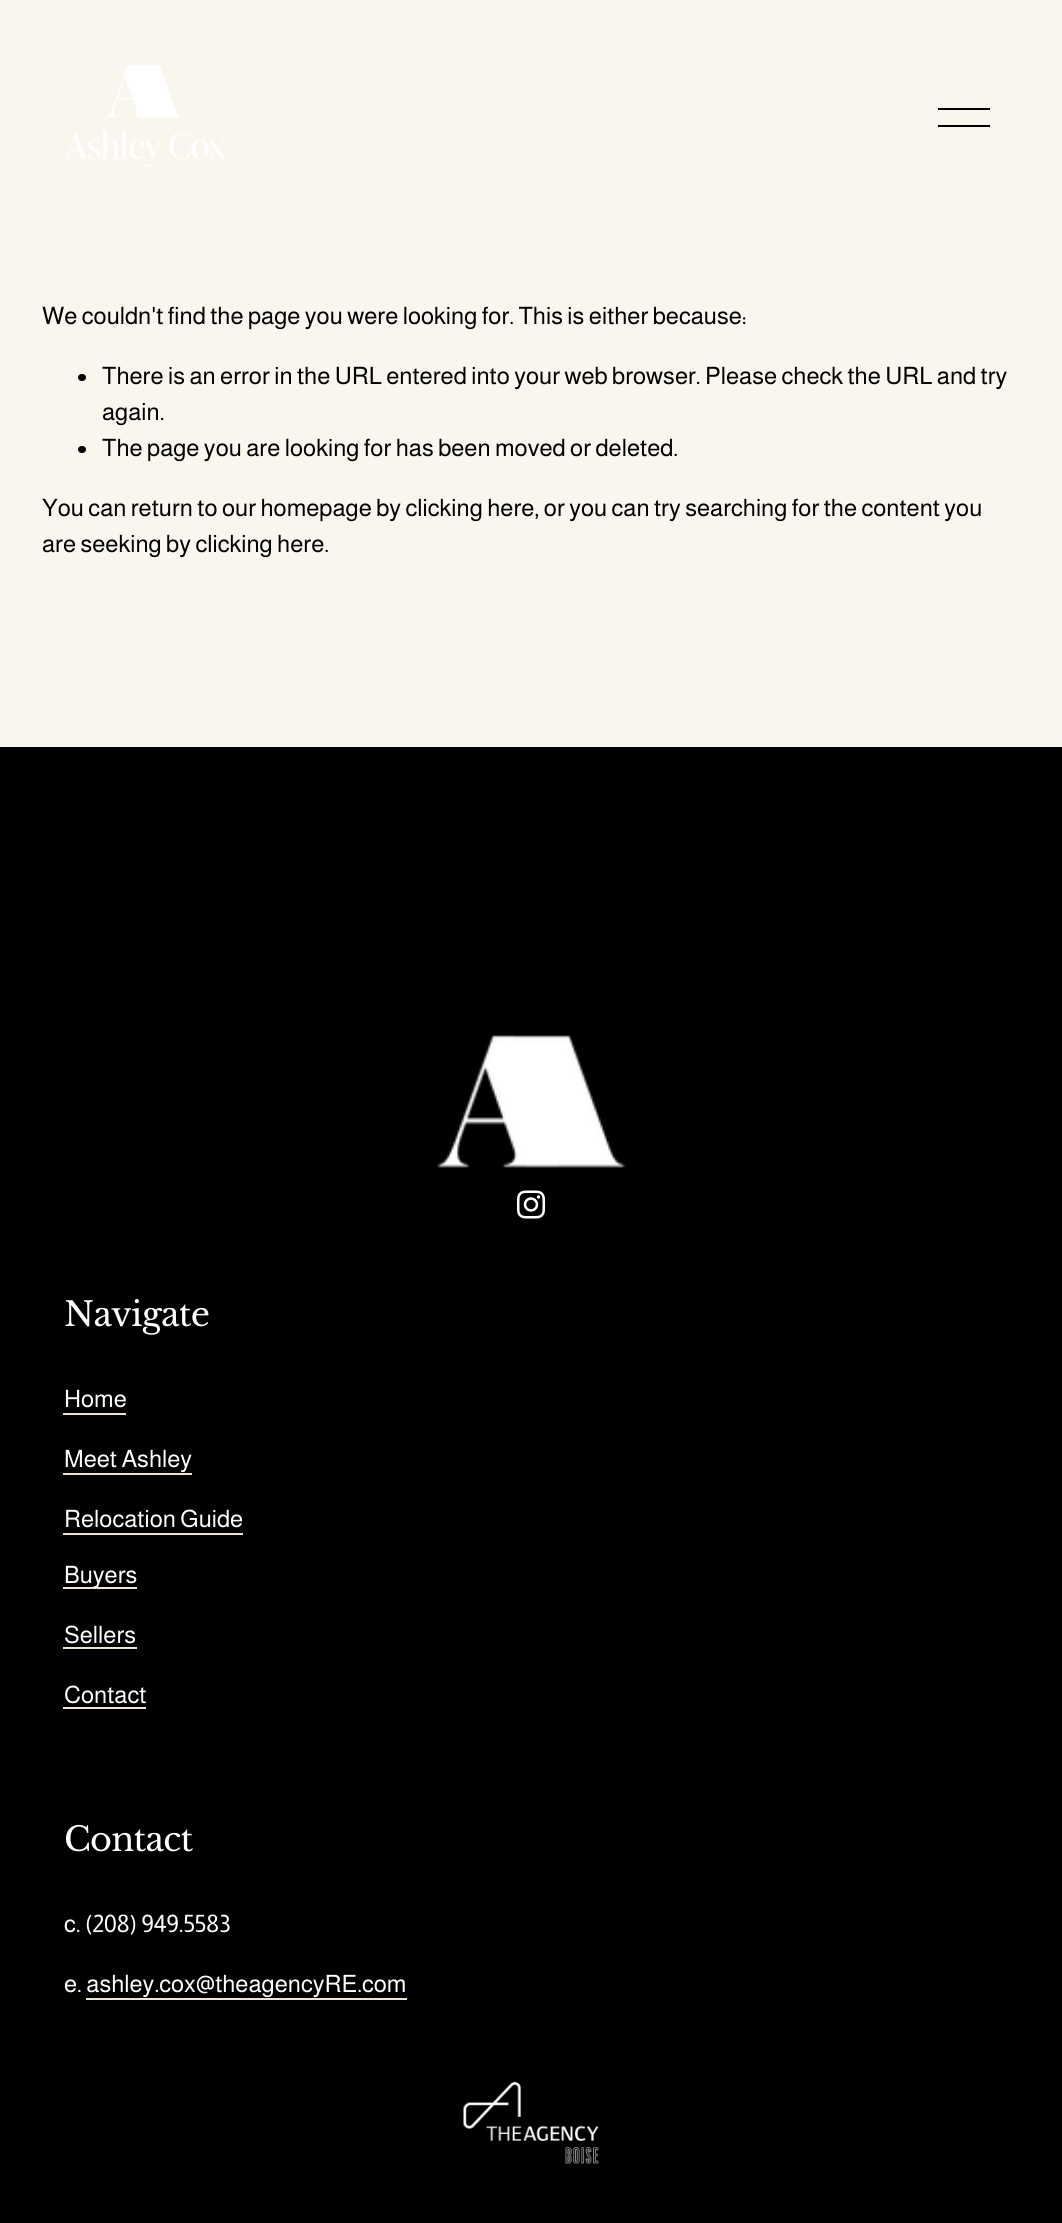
import math
import cairo


def write_spaced(ctx, x, y, s, letter, word):
	ctx.move_to(x, y)
	for ch in s:
		ctx.show_text(ch)
		ctx.rel_move_to(letter + word * (ch == ' '), 0)

def round_path(ctx, x, y, w, h, r):
	ctx.new_sub_path()
	for i, (u, v) in enumerate([(x + w - r, y + h - r), (x + r, y + h - r), (x + r, y + r), (x + w - r, y + r)]):
		ctx.arc(u, v, r, i * math.pi / 2, (i + 1) * math.pi / 2)
	ctx.close_path()

def paste(ctx, path, x, y, w, h):
	ctx.save()
	ctx.set_source_surface(cairo.ImageSurface.create_from_png(path), x, y)
	ctx.rectangle(x, y, w, h)
	ctx.fill()
	ctx.restore()

def draw(ctx):
	ctx.set_source_rgb(0.969, 0.961, 0.929)
	ctx.paint()
	paste(ctx, 'media/1.png', 65, 64, 161, 103)
	ctx.set_source_rgb(0, 0, 0)
	ctx.rectangle(938, 108, 52, 2)
	ctx.fill()
	ctx.rectangle(938, 125, 52, 2)
	ctx.fill()
	ctx.select_font_face('Almarai')
	ctx.set_font_size(24)
	ctx.move_to(42, 324)
	ctx.show_text('We couldn\'t find the page you were looking for. This is either because:')
	round_path(ctx, 78, 374, 8, 7, 3.5)
	ctx.fill()
	ctx.move_to(102, 384)
	ctx.show_text('There is an error in the URL entered into your web browser. Please check the URL and try')
	ctx.move_to(102, 420)
	ctx.show_text('again.')
	round_path(ctx, 78, 446, 8, 7, 3.5)
	ctx.fill()
	for x, y, s in [
		(102, 456, 'The page you are looking for has been moved or deleted.'),
		(42, 516, 'You can return to our homepage by clicking here, or you can try searching for the content you'),
		(42, 552, 'are seeking by clicking here.'),
	]:
		ctx.move_to(x, y)
		ctx.show_text(s)
	ctx.rectangle(0, 747, 1062, 1476)
	ctx.fill()
	paste(ctx, 'media/2.png', 437, 1034, 189, 134)
	paste(ctx, 'media/3.png', 516, 1190, 30, 29)
	ctx.select_font_face('Libre Baskerville')
	ctx.set_font_size(33.5)
	ctx.set_source_rgb(1, 1, 1)
	write_spaced(ctx, 64, 1326, 'Navigate', -0.75, 0)
	ctx.select_font_face('Almarai')
	ctx.set_font_size(24)
	ctx.move_to(64, 1407)
	ctx.show_text('Home')
	ctx.set_source_rgb(0.922, 0.894, 0.839)
	ctx.rectangle(63, 1413, 63, 2)
	ctx.fill()
	ctx.set_source_rgb(1, 1, 1)
	ctx.move_to(64, 1467)
	ctx.show_text('Meet Ashley')
	ctx.set_source_rgb(0.922, 0.894, 0.839)
	ctx.rectangle(63, 1473, 129, 2)
	ctx.fill()
	ctx.set_source_rgb(1, 1, 1)
	ctx.move_to(64, 1527)
	ctx.show_text('Relocation Guide')
	ctx.set_source_rgb(0.922, 0.894, 0.839)
	ctx.rectangle(63, 1533, 180, 2)
	ctx.fill()
	ctx.rectangle(63, 1587, 74, 2)
	ctx.fill()
	ctx.set_source_rgb(1, 1, 1)
	ctx.move_to(64, 1583)
	ctx.show_text('Buyers')
	ctx.move_to(64, 1643)
	ctx.show_text('Sellers')
	ctx.set_source_rgb(0.922, 0.894, 0.839)
	ctx.rectangle(63, 1647, 74, 2)
	ctx.fill()
	ctx.set_source_rgb(1, 1, 1)
	ctx.move_to(64, 1703)
	ctx.show_text('Contact')
	ctx.set_source_rgb(0.922, 0.894, 0.839)
	ctx.rectangle(63, 1707, 83, 2)
	ctx.fill()
	ctx.select_font_face('Libre Baskerville')
	ctx.set_font_size(33.5)
	ctx.set_source_rgb(1, 1, 1)
	write_spaced(ctx, 64, 1851, 'Contact', -0.75, 0)
	ctx.select_font_face('Almarai')
	ctx.set_font_size(24)
	ctx.move_to(64, 1932)
	ctx.show_text('c. (208) 949.5583')
	ctx.move_to(64, 1992)
	ctx.show_text('e. ashley.cox@theagencyRE.com')
	ctx.set_source_rgb(0.922, 0.894, 0.839)
	ctx.rectangle(86, 1998, 321, 2)
	ctx.fill()
	paste(ctx, 'media/4.png', 463, 2082, 136, 82)


surface = cairo.ImageSurface(cairo.FORMAT_RGB24, 1062, 2223)
ctx = cairo.Context(surface)
options = cairo.FontOptions()
options.set_hint_metrics(cairo.HINT_METRICS_OFF)
options.set_hint_style(cairo.HINT_STYLE_NONE)
ctx.set_font_options(options)
ctx.set_miter_limit(4)
draw(ctx)
surface.write_to_png('image.png')
